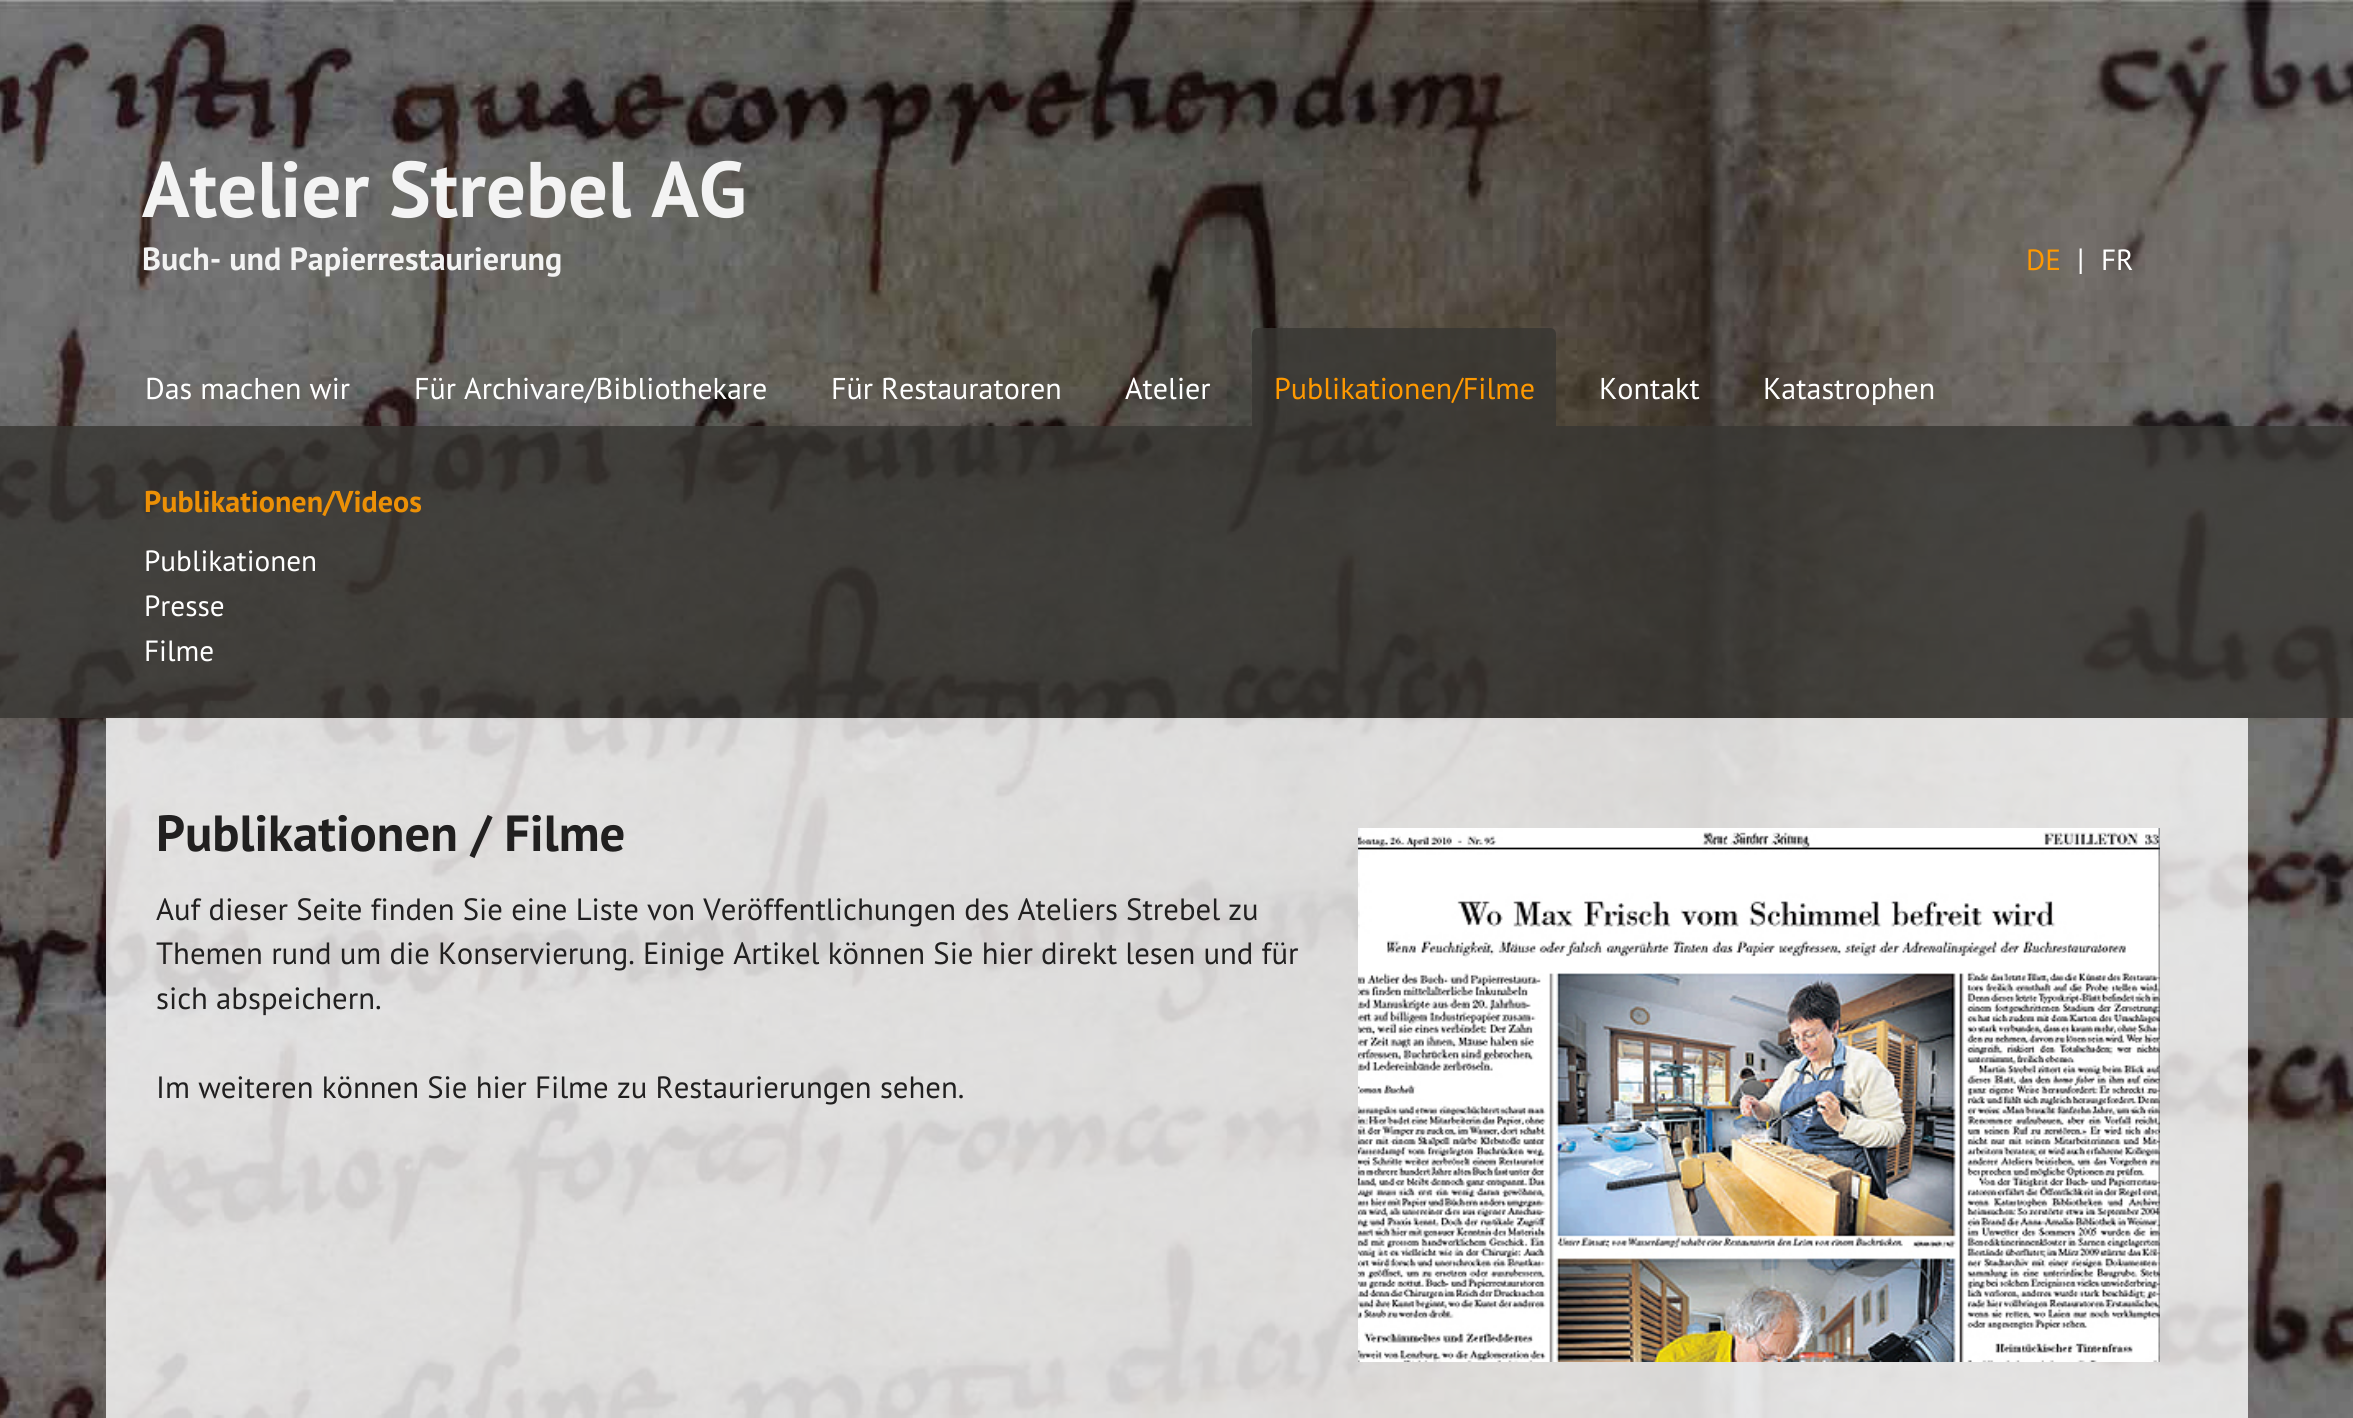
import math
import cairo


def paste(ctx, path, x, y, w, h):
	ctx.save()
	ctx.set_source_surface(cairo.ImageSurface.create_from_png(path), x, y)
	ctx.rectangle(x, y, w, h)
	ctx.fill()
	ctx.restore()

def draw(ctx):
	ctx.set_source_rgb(1, 1, 1)
	ctx.paint()
	paste(ctx, 'media/1.png', 0, 0, 2353, 1418)
	ctx.select_font_face('PT Sans', cairo.FONT_SLANT_NORMAL, cairo.FONT_WEIGHT_BOLD)
	ctx.set_font_size(78.75)
	ctx.set_source_rgb(0.953, 0.953, 0.953)
	ctx.move_to(142, 217)
	ctx.show_text('Atelier Strebel AG')
	ctx.set_font_size(32.1)
	ctx.move_to(142, 270)
	ctx.show_text('Buch- und Papierrestaurierung')
	ctx.select_font_face('PT Sans')
	ctx.set_font_size(29.25)
	ctx.set_source_rgb(1, 0.6, 0)
	ctx.move_to(2026, 270)
	ctx.show_text('DE')
	ctx.set_font_size(30.75)
	ctx.set_source_rgb(1, 1, 1)
	ctx.move_to(2077, 270)
	ctx.show_text('|')
	ctx.set_font_size(29.25)
	ctx.move_to(2101, 270)
	ctx.show_text('FR')
	ctx.set_font_size(30.1)
	for x, y, s in [
		(145, 399, 'Das machen wir'),
		(414, 399, 'Für Archivare/Bibliothekare'),
		(831, 399, 'Für Restauratoren'),
		(1125, 399, 'Atelier'),
	]:
		ctx.move_to(x, y)
		ctx.show_text(s)
	ctx.set_source_rgba(0.216, 0.212, 0.2, 0.8)
	ctx.new_path()
	ctx.move_to(1258, 328)
	ctx.line_to(1550, 328)
	ctx.curve_to(1553.5, 328, 1556, 330.5, 1556, 334)
	ctx.line_to(1556, 426)
	ctx.line_to(1252, 426)
	ctx.line_to(1252, 334)
	ctx.curve_to(1252, 330.5, 1254.5, 328, 1258, 328)
	ctx.close_path()
	ctx.fill()
	ctx.set_source_rgb(1, 0.6, 0)
	ctx.move_to(1274, 399)
	ctx.show_text('Publikationen/Filme')
	ctx.set_source_rgb(1, 1, 1)
	ctx.move_to(1599, 399)
	ctx.show_text('Kontakt')
	ctx.move_to(1763, 399)
	ctx.show_text('Katastrophen')
	ctx.set_source_rgba(0.216, 0.212, 0.2, 0.8)
	ctx.rectangle(0, 426, 2353, 292)
	ctx.fill()
	ctx.select_font_face('PT Sans', cairo.FONT_SLANT_NORMAL, cairo.FONT_WEIGHT_BOLD)
	ctx.set_source_rgb(0.925, 0.565, 0.024)
	ctx.move_to(144, 512)
	ctx.show_text('Publikationen/Videos')
	ctx.select_font_face('PT Sans')
	ctx.set_font_size(29.25)
	ctx.set_source_rgb(1, 1, 1)
	for x, y, s in [
		(144, 571, 'Publikationen'),
		(144, 616, 'Presse'),
		(144, 661, 'Filme'),
	]:
		ctx.move_to(x, y)
		ctx.show_text(s)
	ctx.set_source_rgba(1, 1, 1, 0.8)
	ctx.rectangle(106, 718, 2142, 700)
	ctx.fill()
	ctx.select_font_face('PT Sans', cairo.FONT_SLANT_NORMAL, cairo.FONT_WEIGHT_BOLD)
	ctx.set_font_size(50.75)
	ctx.set_source_rgb(0.129, 0.125, 0.125)
	ctx.move_to(156, 851)
	ctx.show_text('Publikationen / Filme')
	ctx.select_font_face('PT Sans')
	ctx.set_font_size(30.75)
	for x, y, s in [
		(156, 920, 'Auf dieser Seite finden Sie eine Liste von Veröffentlichungen des Ateliers Strebel zu'),
		(156, 964, 'Themen rund um die Konservierung. Einige Artikel können Sie hier direkt lesen und für'),
		(156, 1009, 'sich abspeichern.'),
		(156, 1098, 'Im weiteren können Sie hier Filme zu Restaurierungen sehen.'),
	]:
		ctx.move_to(x, y)
		ctx.show_text(s)
	paste(ctx, 'media/2.png', 1358, 828, 802, 534)


surface = cairo.ImageSurface(cairo.FORMAT_RGB24, 2353, 1418)
ctx = cairo.Context(surface)
options = cairo.FontOptions()
options.set_hint_metrics(cairo.HINT_METRICS_OFF)
options.set_hint_style(cairo.HINT_STYLE_NONE)
ctx.set_font_options(options)
ctx.set_miter_limit(4)
draw(ctx)
surface.write_to_png('image.png')
